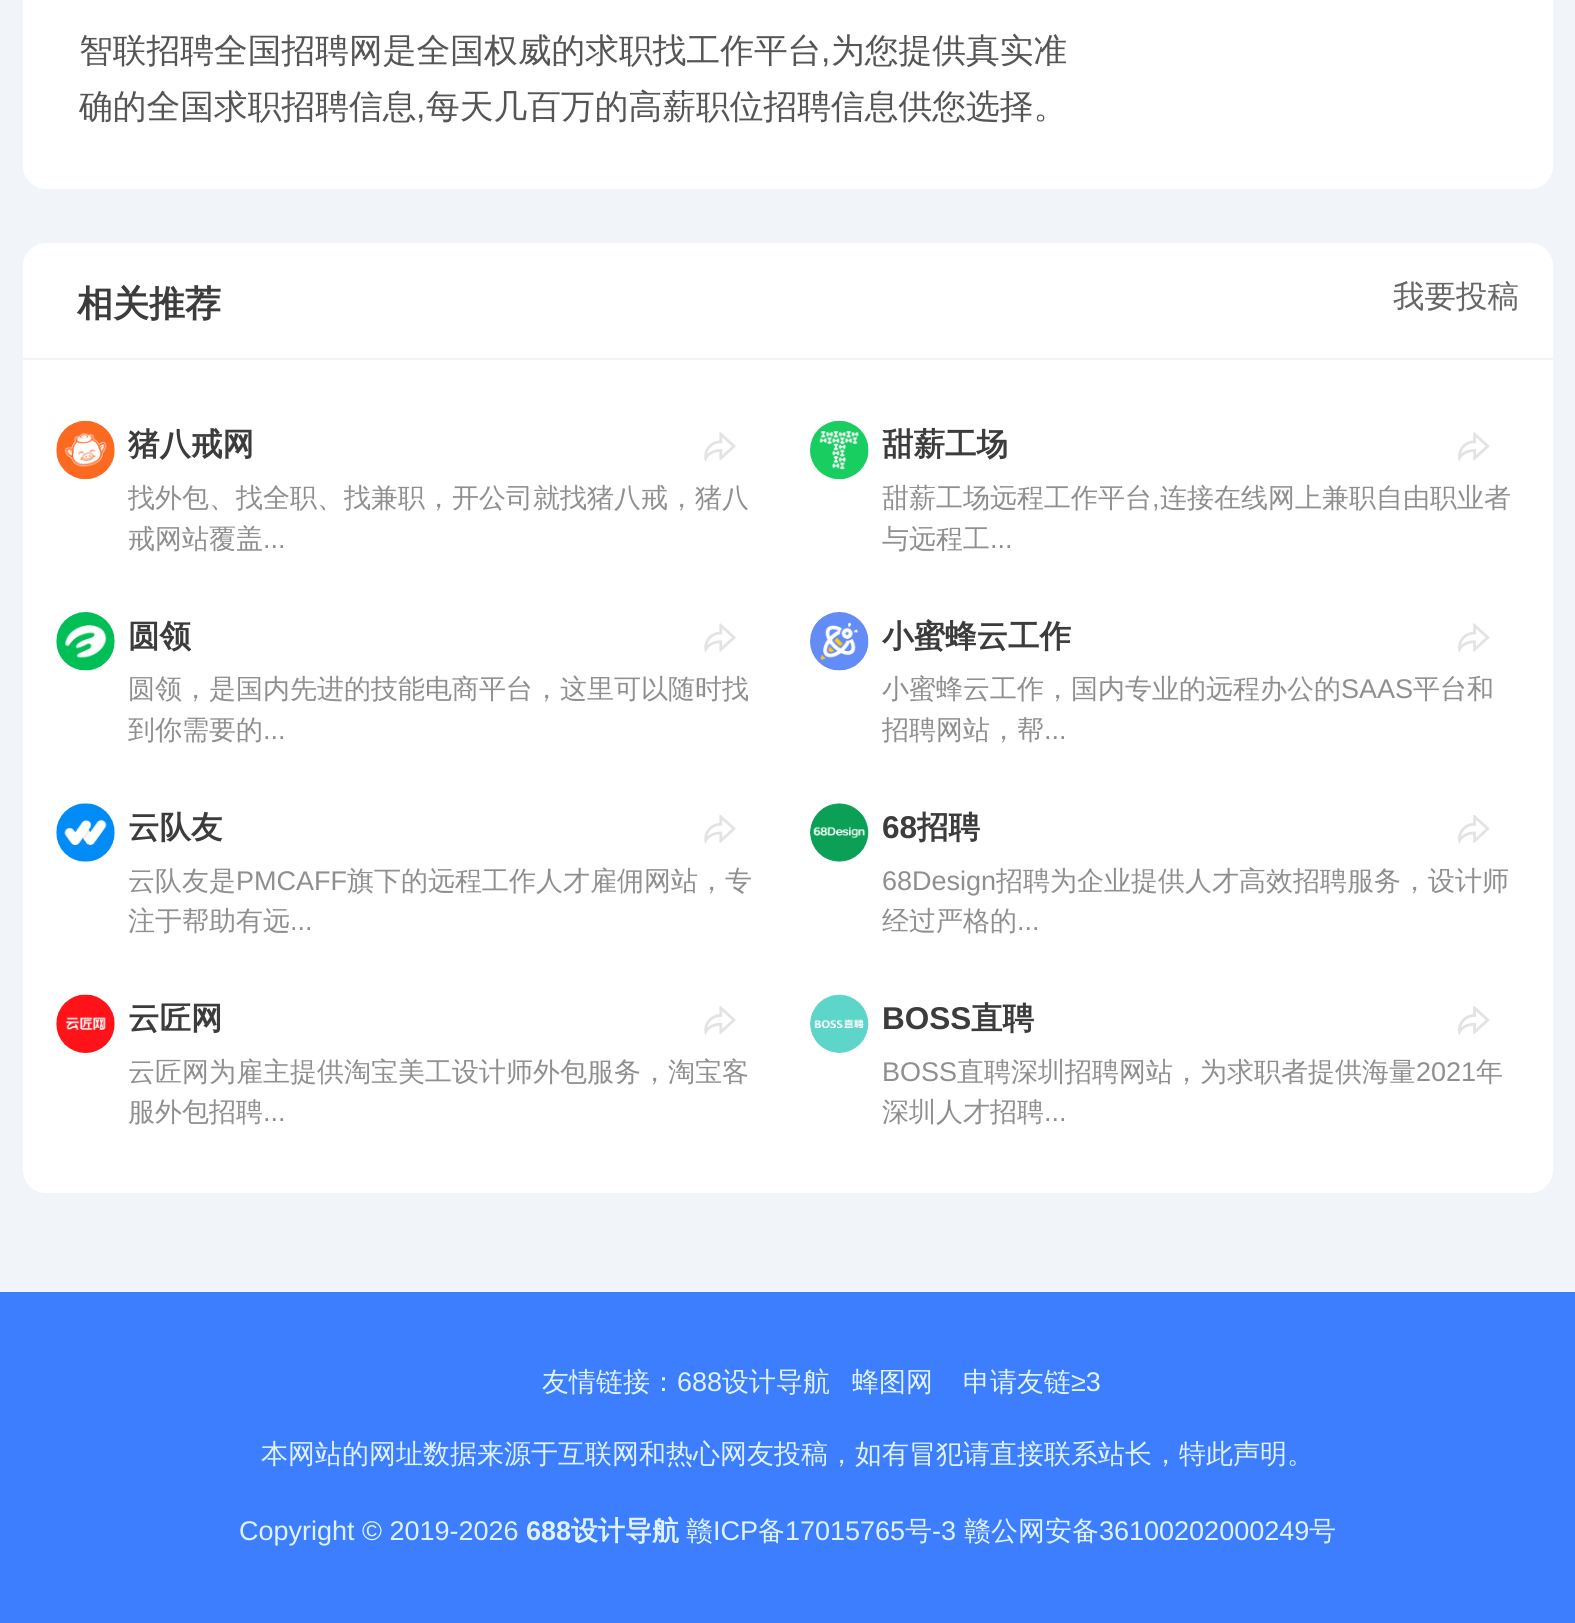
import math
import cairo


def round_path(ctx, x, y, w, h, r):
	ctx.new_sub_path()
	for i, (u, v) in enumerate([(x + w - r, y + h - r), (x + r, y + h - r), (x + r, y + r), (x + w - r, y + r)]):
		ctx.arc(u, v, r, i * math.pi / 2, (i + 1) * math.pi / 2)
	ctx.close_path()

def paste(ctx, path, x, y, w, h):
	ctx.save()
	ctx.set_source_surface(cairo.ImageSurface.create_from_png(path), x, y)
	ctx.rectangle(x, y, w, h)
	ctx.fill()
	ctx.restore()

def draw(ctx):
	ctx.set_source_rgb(0.945, 0.957, 0.976)
	ctx.paint()
	ctx.set_source_rgb(1, 1, 1)
	round_path(ctx, 23, -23, 1530, 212, 23)
	ctx.fill()
	ctx.select_font_face('WenQuanYi Zen Hei Medium')
	ctx.set_font_size(33.75)
	ctx.set_source_rgb(0.333, 0.333, 0.333)
	ctx.move_to(79, 62)
	ctx.show_text('智联招聘全国招聘网是全国权威的求职找工作平台')
	ctx.select_font_face('Liberation Sans')
	ctx.move_to(821, 62)
	ctx.show_text(',')
	ctx.select_font_face('WenQuanYi Zen Hei Medium')
	ctx.move_to(831, 62)
	ctx.show_text('为您提供真实准')
	ctx.move_to(79, 118)
	ctx.show_text('确的全国求职招聘信息')
	ctx.select_font_face('Liberation Sans')
	ctx.move_to(416, 118)
	ctx.show_text(',')
	ctx.select_font_face('WenQuanYi Zen Hei Medium')
	ctx.move_to(426, 118)
	ctx.show_text('每天几百万的高薪职位招聘信息供您选择。')
	ctx.set_source_rgb(1, 1, 1)
	round_path(ctx, 23, 243, 1530, 950, 23)
	ctx.fill()
	ctx.set_source_rgb(0.945, 0.957, 0.976)
	ctx.rectangle(23, 358, 1530, 2)
	ctx.fill()
	ctx.select_font_face('WenQuanYi Zen Hei', cairo.FONT_SLANT_NORMAL, cairo.FONT_WEIGHT_BOLD)
	ctx.set_font_size(36)
	ctx.set_source_rgb(0.235, 0.235, 0.235)
	ctx.move_to(77, 316)
	ctx.show_text('相关推荐')
	ctx.select_font_face('WenQuanYi Zen Hei Medium')
	ctx.set_font_size(31.5)
	ctx.set_source_rgb(0.4, 0.4, 0.4)
	ctx.move_to(1393, 307)
	ctx.show_text('我要投稿')
	paste(ctx, 'media/1.png', 56, 420, 59, 60)
	ctx.select_font_face('WenQuanYi Zen Hei', cairo.FONT_SLANT_NORMAL, cairo.FONT_WEIGHT_BOLD)
	ctx.set_source_rgb(0.235, 0.235, 0.235)
	ctx.move_to(128, 455)
	ctx.show_text('猪八戒网')
	ctx.select_font_face('WenQuanYi Zen Hei Medium')
	ctx.set_font_size(27)
	ctx.set_source_rgb(0.561, 0.561, 0.561)
	ctx.move_to(128, 507)
	ctx.show_text('找外包、找全职、找兼职，开公司就找猪八戒，猪八')
	ctx.move_to(128, 548)
	ctx.show_text('戒网站覆盖')
	ctx.select_font_face('Liberation Sans')
	ctx.move_to(263, 548)
	ctx.show_text('...')
	paste(ctx, 'media/2.png', 704, 432, 32, 30)
	paste(ctx, 'media/3.png', 810, 420, 59, 60)
	ctx.select_font_face('WenQuanYi Zen Hei', cairo.FONT_SLANT_NORMAL, cairo.FONT_WEIGHT_BOLD)
	ctx.set_font_size(31.5)
	ctx.set_source_rgb(0.235, 0.235, 0.235)
	ctx.move_to(882, 455)
	ctx.show_text('甜薪工场')
	ctx.select_font_face('WenQuanYi Zen Hei Medium')
	ctx.set_font_size(27)
	ctx.set_source_rgb(0.561, 0.561, 0.561)
	ctx.move_to(882, 507)
	ctx.show_text('甜薪工场远程工作平台')
	ctx.select_font_face('Liberation Sans')
	ctx.move_to(1152, 507)
	ctx.show_text(',')
	ctx.select_font_face('WenQuanYi Zen Hei Medium')
	ctx.move_to(1160, 507)
	ctx.show_text('连接在线网上兼职自由职业者')
	ctx.move_to(882, 548)
	ctx.show_text('与远程工')
	ctx.select_font_face('Liberation Sans')
	ctx.move_to(990, 548)
	ctx.show_text('...')
	paste(ctx, 'media/4.png', 1458, 432, 32, 30)
	paste(ctx, 'media/5.png', 56, 612, 59, 59)
	ctx.select_font_face('WenQuanYi Zen Hei', cairo.FONT_SLANT_NORMAL, cairo.FONT_WEIGHT_BOLD)
	ctx.set_font_size(31.5)
	ctx.set_source_rgb(0.235, 0.235, 0.235)
	ctx.move_to(128, 647)
	ctx.show_text('圆领')
	ctx.select_font_face('WenQuanYi Zen Hei Medium')
	ctx.set_font_size(27)
	ctx.set_source_rgb(0.561, 0.561, 0.561)
	ctx.move_to(128, 698)
	ctx.show_text('圆领，是国内先进的技能电商平台，这里可以随时找')
	ctx.move_to(128, 739)
	ctx.show_text('到你需要的')
	ctx.select_font_face('Liberation Sans')
	ctx.move_to(263, 739)
	ctx.show_text('...')
	paste(ctx, 'media/6.png', 704, 623, 32, 30)
	paste(ctx, 'media/7.png', 810, 612, 59, 59)
	ctx.select_font_face('WenQuanYi Zen Hei', cairo.FONT_SLANT_NORMAL, cairo.FONT_WEIGHT_BOLD)
	ctx.set_font_size(31.5)
	ctx.set_source_rgb(0.235, 0.235, 0.235)
	ctx.move_to(882, 647)
	ctx.show_text('小蜜蜂云工作')
	ctx.select_font_face('WenQuanYi Zen Hei Medium')
	ctx.set_font_size(27)
	ctx.set_source_rgb(0.561, 0.561, 0.561)
	ctx.move_to(882, 698)
	ctx.show_text('小蜜蜂云工作，国内专业的远程办公的')
	ctx.select_font_face('Liberation Sans')
	ctx.move_to(1341, 698)
	ctx.show_text('SAAS')
	ctx.select_font_face('WenQuanYi Zen Hei Medium')
	ctx.move_to(1413, 698)
	ctx.show_text('平台和')
	ctx.move_to(882, 739)
	ctx.show_text('招聘网站，帮')
	ctx.select_font_face('Liberation Sans')
	ctx.move_to(1044, 739)
	ctx.show_text('...')
	paste(ctx, 'media/8.png', 1458, 623, 32, 30)
	paste(ctx, 'media/9.png', 56, 803, 59, 59)
	ctx.select_font_face('WenQuanYi Zen Hei', cairo.FONT_SLANT_NORMAL, cairo.FONT_WEIGHT_BOLD)
	ctx.set_font_size(31.5)
	ctx.set_source_rgb(0.235, 0.235, 0.235)
	ctx.move_to(128, 838)
	ctx.show_text('云队友')
	ctx.select_font_face('WenQuanYi Zen Hei Medium')
	ctx.set_font_size(27)
	ctx.set_source_rgb(0.561, 0.561, 0.561)
	ctx.move_to(128, 890)
	ctx.show_text('云队友是')
	ctx.select_font_face('Liberation Sans')
	ctx.move_to(236, 890)
	ctx.show_text('PMCAFF')
	ctx.select_font_face('WenQuanYi Zen Hei Medium')
	ctx.move_to(347, 890)
	ctx.show_text('旗下的远程工作人才雇佣网站，专')
	ctx.move_to(128, 930)
	ctx.show_text('注于帮助有远')
	ctx.select_font_face('Liberation Sans')
	ctx.move_to(290, 930)
	ctx.show_text('...')
	paste(ctx, 'media/10.png', 704, 815, 32, 29)
	paste(ctx, 'media/11.png', 810, 803, 59, 59)
	ctx.select_font_face('Liberation Sans', cairo.FONT_SLANT_NORMAL, cairo.FONT_WEIGHT_BOLD)
	ctx.set_font_size(31.5)
	ctx.set_source_rgb(0.235, 0.235, 0.235)
	ctx.move_to(882, 838)
	ctx.show_text('68')
	ctx.select_font_face('WenQuanYi Zen Hei', cairo.FONT_SLANT_NORMAL, cairo.FONT_WEIGHT_BOLD)
	ctx.move_to(917, 838)
	ctx.show_text('招聘')
	ctx.select_font_face('Liberation Sans')
	ctx.set_font_size(27)
	ctx.set_source_rgb(0.561, 0.561, 0.561)
	ctx.move_to(882, 890)
	ctx.show_text('68Design')
	ctx.select_font_face('WenQuanYi Zen Hei Medium')
	ctx.move_to(996, 890)
	ctx.show_text('招聘为企业提供人才高效招聘服务，设计师')
	ctx.move_to(882, 930)
	ctx.show_text('经过严格的')
	ctx.select_font_face('Liberation Sans')
	ctx.move_to(1017, 930)
	ctx.show_text('...')
	paste(ctx, 'media/12.png', 1458, 815, 32, 29)
	paste(ctx, 'media/13.png', 56, 994, 59, 59)
	ctx.select_font_face('WenQuanYi Zen Hei', cairo.FONT_SLANT_NORMAL, cairo.FONT_WEIGHT_BOLD)
	ctx.set_font_size(31.5)
	ctx.set_source_rgb(0.235, 0.235, 0.235)
	ctx.move_to(128, 1029)
	ctx.show_text('云匠网')
	ctx.select_font_face('WenQuanYi Zen Hei Medium')
	ctx.set_font_size(27)
	ctx.set_source_rgb(0.561, 0.561, 0.561)
	ctx.move_to(128, 1081)
	ctx.show_text('云匠网为雇主提供淘宝美工设计师外包服务，淘宝客')
	ctx.move_to(128, 1121)
	ctx.show_text('服外包招聘')
	ctx.select_font_face('Liberation Sans')
	ctx.move_to(263, 1121)
	ctx.show_text('...')
	paste(ctx, 'media/14.png', 704, 1006, 32, 30)
	paste(ctx, 'media/15.png', 810, 994, 59, 59)
	ctx.select_font_face('Liberation Sans', cairo.FONT_SLANT_NORMAL, cairo.FONT_WEIGHT_BOLD)
	ctx.set_font_size(31.5)
	ctx.set_source_rgb(0.235, 0.235, 0.235)
	ctx.move_to(882, 1029)
	ctx.show_text('BOSS')
	ctx.select_font_face('WenQuanYi Zen Hei', cairo.FONT_SLANT_NORMAL, cairo.FONT_WEIGHT_BOLD)
	ctx.move_to(971, 1029)
	ctx.show_text('直聘')
	ctx.select_font_face('Liberation Sans')
	ctx.set_font_size(27)
	ctx.set_source_rgb(0.561, 0.561, 0.561)
	ctx.move_to(882, 1081)
	ctx.show_text('BOSS')
	ctx.select_font_face('WenQuanYi Zen Hei Medium')
	ctx.move_to(957, 1081)
	ctx.show_text('直聘深圳招聘网站，为求职者提供海量')
	ctx.select_font_face('Liberation Sans')
	ctx.move_to(1416, 1081)
	ctx.show_text('2021')
	ctx.select_font_face('WenQuanYi Zen Hei Medium')
	ctx.move_to(1476, 1081)
	ctx.show_text('年')
	ctx.move_to(882, 1121)
	ctx.show_text('深圳人才招聘')
	ctx.select_font_face('Liberation Sans')
	ctx.move_to(1044, 1121)
	ctx.show_text('...')
	paste(ctx, 'media/16.png', 1458, 1006, 32, 30)
	ctx.set_source_rgb(0.239, 0.494, 1)
	ctx.rectangle(0, 1292, 1575, 331)
	ctx.fill()
	ctx.select_font_face('WenQuanYi Zen Hei Medium')
	ctx.set_source_rgb(0.875, 0.949, 1)
	ctx.move_to(542, 1391)
	ctx.show_text('友情链接：')
	ctx.select_font_face('Liberation Sans')
	ctx.move_to(677, 1391)
	ctx.show_text('688')
	ctx.select_font_face('WenQuanYi Zen Hei Medium')
	for x, y, s in [
		(722, 1391, '设计导航'),
		(852, 1391, '蜂图网'),
		(963, 1391, '申请友链'),
	]:
		ctx.move_to(x, y)
		ctx.show_text(s)
	ctx.select_font_face('Liberation Sans')
	ctx.move_to(1071, 1391)
	ctx.show_text('≥3')
	ctx.select_font_face('WenQuanYi Zen Hei Medium')
	ctx.move_to(261, 1463)
	ctx.show_text('本网站的网址数据来源于互联网和热心网友投稿，如有冒犯请直接联系站长，特此声明。')
	ctx.select_font_face('Liberation Sans')
	ctx.move_to(239, 1540)
	ctx.show_text('Copyright © 2019-2026')
	ctx.select_font_face('Liberation Sans', cairo.FONT_SLANT_NORMAL, cairo.FONT_WEIGHT_BOLD)
	ctx.move_to(526, 1540)
	ctx.show_text('688')
	ctx.select_font_face('WenQuanYi Zen Hei', cairo.FONT_SLANT_NORMAL, cairo.FONT_WEIGHT_BOLD)
	ctx.move_to(571, 1540)
	ctx.show_text('设计导航')
	ctx.select_font_face('WenQuanYi Zen Hei Medium')
	ctx.move_to(686, 1540)
	ctx.show_text('赣')
	ctx.select_font_face('Liberation Sans')
	ctx.move_to(713, 1540)
	ctx.show_text('ICP')
	ctx.select_font_face('WenQuanYi Zen Hei Medium')
	ctx.move_to(758, 1540)
	ctx.show_text('备')
	ctx.select_font_face('Liberation Sans')
	ctx.move_to(785, 1540)
	ctx.show_text('17015765')
	ctx.select_font_face('WenQuanYi Zen Hei Medium')
	ctx.move_to(905, 1540)
	ctx.show_text('号')
	ctx.select_font_face('Liberation Sans')
	ctx.move_to(932, 1540)
	ctx.show_text('-3')
	ctx.select_font_face('WenQuanYi Zen Hei Medium')
	ctx.move_to(964, 1540)
	ctx.show_text('赣公网安备')
	ctx.select_font_face('Liberation Sans')
	ctx.move_to(1099, 1540)
	ctx.show_text('36100202000249')
	ctx.select_font_face('WenQuanYi Zen Hei Medium')
	ctx.move_to(1309, 1540)
	ctx.show_text('号')


surface = cairo.ImageSurface(cairo.FORMAT_RGB24, 1575, 1623)
ctx = cairo.Context(surface)
options = cairo.FontOptions()
options.set_hint_metrics(cairo.HINT_METRICS_OFF)
options.set_hint_style(cairo.HINT_STYLE_NONE)
ctx.set_font_options(options)
ctx.set_miter_limit(4)
draw(ctx)
surface.write_to_png('image.png')
